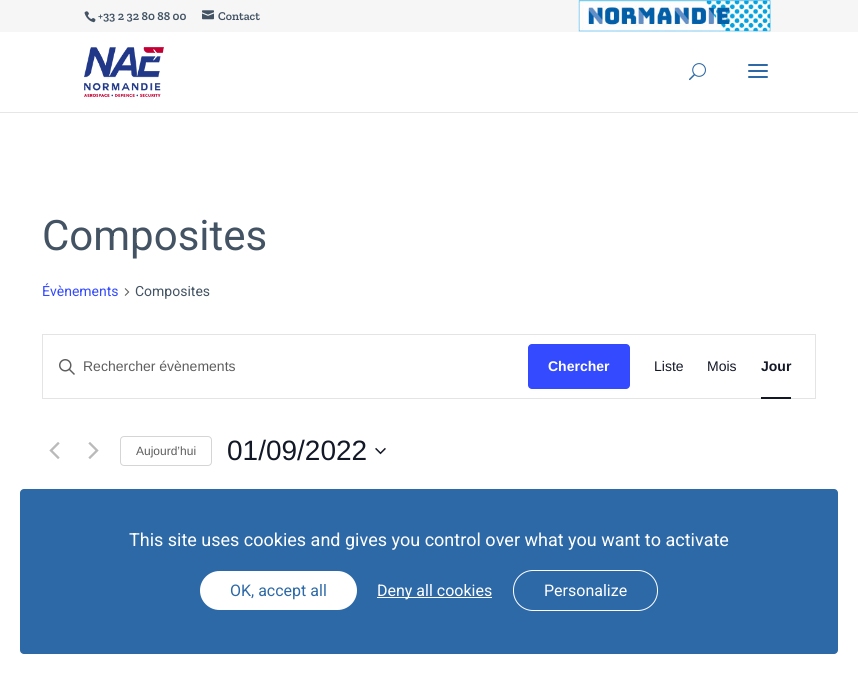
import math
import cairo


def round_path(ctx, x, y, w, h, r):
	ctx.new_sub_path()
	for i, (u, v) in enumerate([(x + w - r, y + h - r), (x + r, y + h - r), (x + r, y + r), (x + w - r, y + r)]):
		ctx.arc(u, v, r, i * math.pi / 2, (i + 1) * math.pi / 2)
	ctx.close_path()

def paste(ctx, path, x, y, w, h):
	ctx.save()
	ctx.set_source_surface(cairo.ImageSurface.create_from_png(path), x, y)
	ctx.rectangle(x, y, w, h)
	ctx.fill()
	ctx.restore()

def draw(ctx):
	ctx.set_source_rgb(1, 1, 1)
	ctx.paint()
	ctx.set_source_rgb(0.961, 0.961, 0.961)
	ctx.rectangle(0, 0, 858, 32)
	ctx.fill()
	paste(ctx, 'media/1.png', 84, 11, 12, 12)
	ctx.select_font_face('Zilla Slab SemiBold')
	ctx.set_font_size(12)
	ctx.set_source_rgb(0.263, 0.325, 0.388)
	ctx.move_to(98, 20)
	ctx.show_text('+33 2 32 80 88 00')
	paste(ctx, 'media/2.png', 202, 10, 12, 10)
	ctx.move_to(218, 20)
	ctx.show_text('Contact')
	paste(ctx, 'media/3.png', 578, 0, 193, 32)
	ctx.set_source_rgb(0.902, 0.902, 0.902)
	ctx.rectangle(0, 112, 858, 1)
	ctx.fill()
	paste(ctx, 'media/4.png', 84, 47, 80, 50)
	paste(ctx, 'media/5.png', 689, 63, 17, 18)
	paste(ctx, 'media/6.png', 748, 64, 20, 14)
	ctx.select_font_face('Roboto')
	ctx.set_font_size(42)
	ctx.set_source_rgb(0.263, 0.325, 0.388)
	ctx.move_to(42, 250)
	ctx.show_text('Composites')
	ctx.set_font_size(14)
	ctx.set_source_rgb(0.2, 0.29, 1)
	ctx.move_to(42, 296)
	ctx.show_text('Évènements')
	paste(ctx, 'media/7.png', 124, 288, 6, 8)
	ctx.set_source_rgb(0.263, 0.325, 0.388)
	ctx.move_to(135, 296)
	ctx.show_text('Composites')
	ctx.rectangle(42.5, 334.5, 773, 64)
	ctx.set_source_rgb(0.894, 0.894, 0.894)
	ctx.set_line_width(1)
	ctx.stroke()
	paste(ctx, 'media/8.png', 59, 359, 16, 16)
	ctx.select_font_face('Liberation Sans')
	ctx.set_source_rgb(0.365, 0.365, 0.365)
	ctx.move_to(83, 371)
	ctx.show_text('Rechercher évènements')
	ctx.set_source_rgb(0.2, 0.29, 1)
	round_path(ctx, 528, 344, 102, 45, 4)
	ctx.fill()
	ctx.select_font_face('Liberation Sans', cairo.FONT_SLANT_NORMAL, cairo.FONT_WEIGHT_BOLD)
	ctx.set_source_rgb(1, 1, 1)
	ctx.move_to(548, 371)
	ctx.show_text('Chercher')
	ctx.select_font_face('Liberation Sans')
	ctx.set_source_rgb(0.078, 0.094, 0.153)
	ctx.move_to(654, 371)
	ctx.show_text('Liste')
	ctx.move_to(707, 371)
	ctx.show_text('Mois')
	ctx.select_font_face('Liberation Sans', cairo.FONT_SLANT_NORMAL, cairo.FONT_WEIGHT_BOLD)
	ctx.move_to(761, 371)
	ctx.show_text('Jour')
	ctx.rectangle(761, 397, 30, 2)
	ctx.fill()
	paste(ctx, 'media/9.png', 49, 442, 11, 17)
	paste(ctx, 'media/10.png', 88, 442, 11, 17)
	round_path(ctx, 120.5, 436.5, 91, 29, 3.5)
	ctx.set_source_rgb(0.835, 0.835, 0.835)
	ctx.stroke()
	ctx.select_font_face('Liberation Sans')
	ctx.set_font_size(12)
	ctx.set_source_rgb(0.365, 0.365, 0.365)
	ctx.move_to(136, 455)
	ctx.show_text('Aujourd’hui')
	ctx.set_font_size(28)
	ctx.set_source_rgb(0.078, 0.094, 0.153)
	ctx.move_to(227, 460)
	ctx.show_text('01/09/2022')
	paste(ctx, 'media/11.png', 375, 447, 11, 8)
	ctx.set_source_rgb(0.176, 0.412, 0.655)
	round_path(ctx, 20, 489, 818, 165, 4)
	ctx.fill()
	ctx.select_font_face('Roboto')
	ctx.set_font_size(18)
	ctx.set_source_rgb(1, 1, 1)
	ctx.move_to(129, 546)
	ctx.show_text('This site uses cookies and gives you control over what you want to activate')
	round_path(ctx, 200, 571, 157, 39, 19.5)
	ctx.fill()
	ctx.set_font_size(16)
	ctx.set_source_rgb(0.176, 0.412, 0.655)
	ctx.move_to(230, 596)
	ctx.show_text('OK, accept all')
	ctx.set_source_rgb(1, 1, 1)
	ctx.rectangle(377, 597, 115, 1)
	ctx.fill()
	ctx.move_to(377, 596)
	ctx.show_text('Deny all cookies')
	round_path(ctx, 513.5, 570.5, 144, 40, 19.5)
	ctx.stroke()
	ctx.move_to(544, 596)
	ctx.show_text('Personalize')


surface = cairo.ImageSurface(cairo.FORMAT_RGB24, 858, 674)
ctx = cairo.Context(surface)
options = cairo.FontOptions()
options.set_hint_metrics(cairo.HINT_METRICS_OFF)
options.set_hint_style(cairo.HINT_STYLE_NONE)
ctx.set_font_options(options)
ctx.set_miter_limit(4)
draw(ctx)
surface.write_to_png('image.png')
